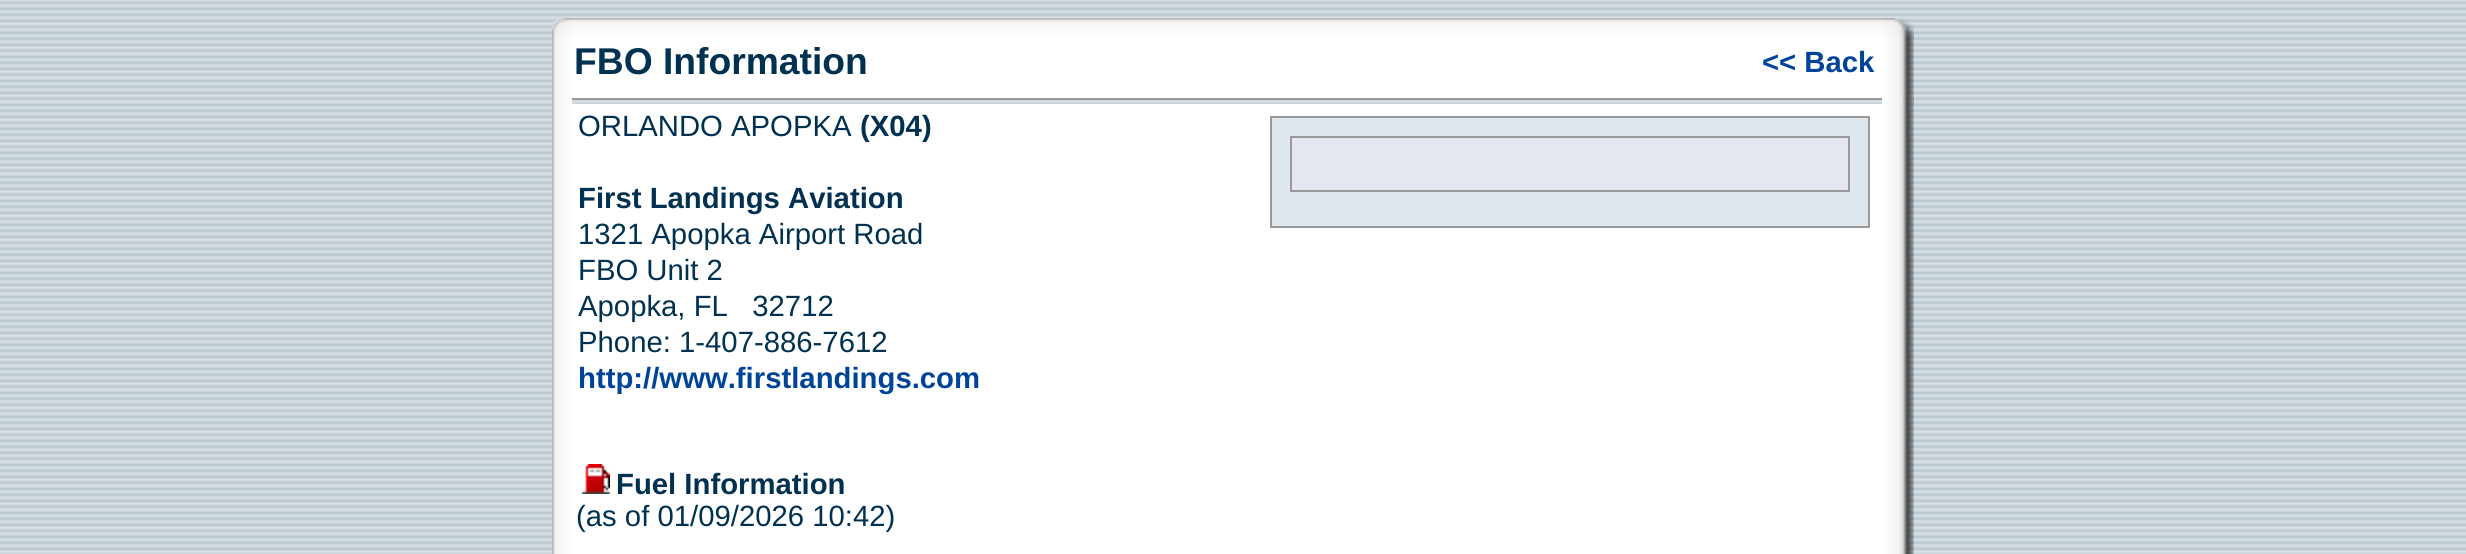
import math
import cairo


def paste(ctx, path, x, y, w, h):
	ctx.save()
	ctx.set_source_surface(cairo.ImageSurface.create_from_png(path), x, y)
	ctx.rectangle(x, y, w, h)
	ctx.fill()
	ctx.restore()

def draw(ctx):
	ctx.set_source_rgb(1, 1, 1)
	ctx.paint()
	paste(ctx, 'media/1.png', 0, 0, 2466, 554)
	paste(ctx, 'media/2.png', 552, 18, 20, 20)
	paste(ctx, 'media/3.png', 572, 18, 1310, 20)
	paste(ctx, 'media/4.png', 1882, 18, 32, 20)
	paste(ctx, 'media/5.png', 552, 38, 20, 60)
	ctx.set_source_rgb(1, 1, 1)
	ctx.rectangle(572, 38, 1310, 60)
	ctx.fill()
	ctx.select_font_face('Liberation Sans', cairo.FONT_SLANT_NORMAL, cairo.FONT_WEIGHT_BOLD)
	ctx.set_font_size(37.25)
	ctx.set_source_rgb(0, 0.192, 0.314)
	ctx.move_to(574, 74)
	ctx.show_text('FBO Information')
	ctx.set_font_size(29.3)
	ctx.set_source_rgb(0, 0.267, 0.6)
	ctx.move_to(1762, 72)
	ctx.show_text('<< Back')
	paste(ctx, 'media/6.png', 1882, 38, 32, 60)
	paste(ctx, 'media/7.png', 552, 98, 20, 2)
	ctx.set_source_rgb(0.6, 0.6, 0.6)
	ctx.rectangle(572, 98, 1310, 2)
	ctx.fill()
	paste(ctx, 'media/8.png', 1882, 98, 32, 2)
	paste(ctx, 'media/9.png', 552, 100, 20, 4)
	paste(ctx, 'media/10.png', 1882, 100, 32, 4)
	paste(ctx, 'media/11.png', 552, 104, 20, 450)
	ctx.set_source_rgb(1, 1, 1)
	ctx.rectangle(572, 104, 1310, 450)
	ctx.fill()
	ctx.select_font_face('Liberation Sans')
	ctx.set_source_rgb(0, 0.192, 0.314)
	ctx.move_to(578, 136)
	ctx.show_text('ORLANDO APOPKA')
	ctx.select_font_face('Liberation Sans', cairo.FONT_SLANT_NORMAL, cairo.FONT_WEIGHT_BOLD)
	ctx.move_to(860, 136)
	ctx.show_text('(X04)')
	ctx.move_to(578, 208)
	ctx.show_text('First Landings Aviation')
	ctx.select_font_face('Liberation Sans')
	for x, y, s in [
		(578, 244, '1321 Apopka Airport Road'),
		(578, 280, 'FBO Unit 2'),
		(578, 316, 'Apopka, FL   32712'),
		(578, 352, 'Phone: 1-407-886-7612'),
	]:
		ctx.move_to(x, y)
		ctx.show_text(s)
	ctx.select_font_face('Liberation Sans', cairo.FONT_SLANT_NORMAL, cairo.FONT_WEIGHT_BOLD)
	ctx.set_source_rgb(0, 0.267, 0.6)
	ctx.move_to(578, 388)
	ctx.show_text('http://www.firstlandings.com')
	paste(ctx, 'media/12.png', 582, 464, 28, 30)
	ctx.set_source_rgb(0, 0.192, 0.314)
	ctx.move_to(616, 494)
	ctx.show_text('Fuel Information')
	ctx.select_font_face('Liberation Sans')
	ctx.move_to(576, 526)
	ctx.show_text('(as of 01/09/2026 10:42)')
	ctx.set_source_rgb(0.875, 0.906, 0.933)
	ctx.rectangle(1271, 117, 598, 110)
	ctx.fill_preserve()
	ctx.set_source_rgb(0.6, 0.6, 0.6)
	ctx.stroke()
	ctx.set_source_rgb(0.898, 0.906, 0.941)
	ctx.rectangle(1291, 137, 558, 54)
	ctx.fill_preserve()
	ctx.set_source_rgb(0.6, 0.6, 0.6)
	ctx.stroke()
	paste(ctx, 'media/13.png', 1882, 104, 32, 450)


surface = cairo.ImageSurface(cairo.FORMAT_RGB24, 2466, 554)
ctx = cairo.Context(surface)
options = cairo.FontOptions()
options.set_hint_metrics(cairo.HINT_METRICS_OFF)
options.set_hint_style(cairo.HINT_STYLE_NONE)
ctx.set_font_options(options)
ctx.set_miter_limit(4)
draw(ctx)
surface.write_to_png('image.png')
